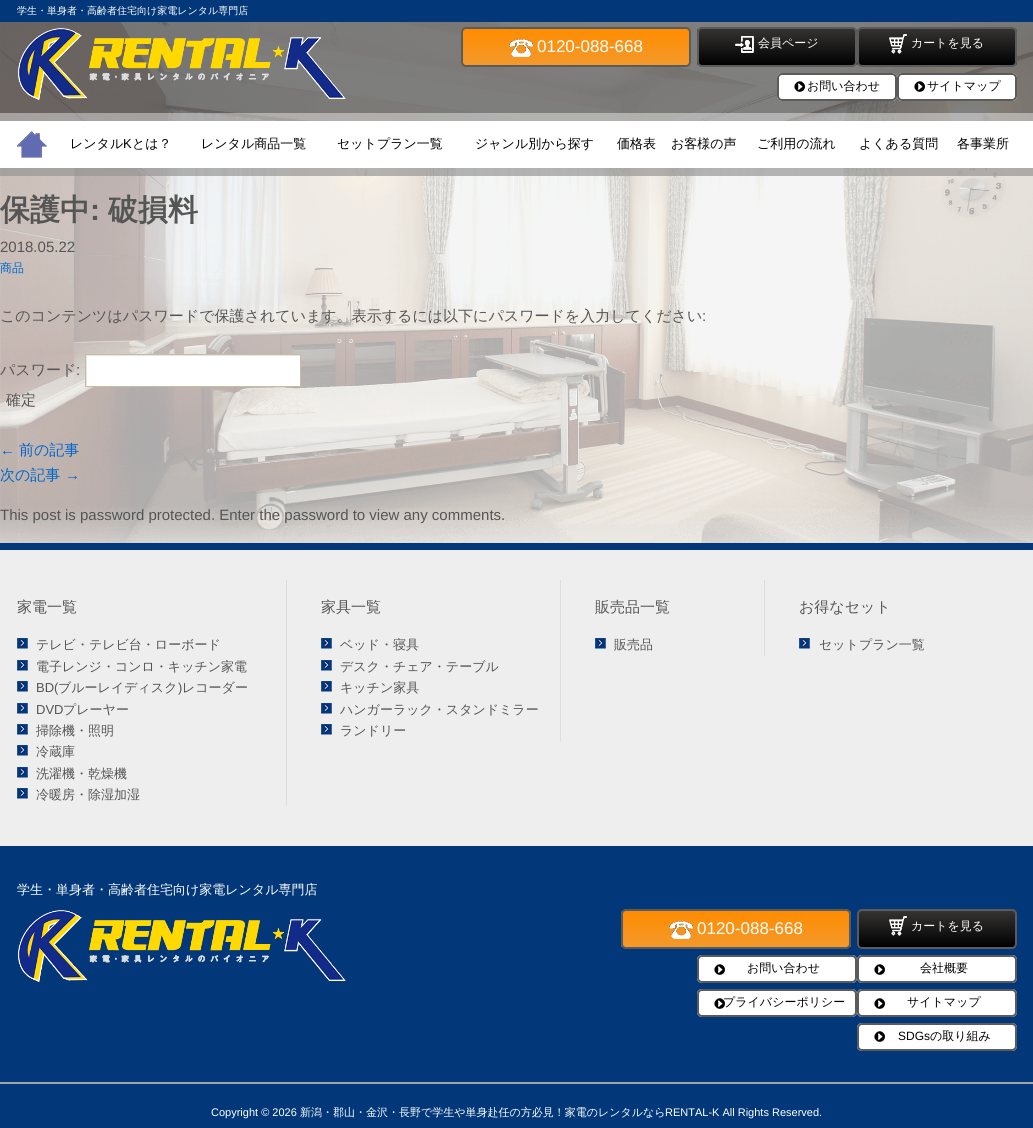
import math
import cairo


def round_path(ctx, x, y, w, h, r):
	ctx.new_sub_path()
	for i, (u, v) in enumerate([(x + w - r, y + h - r), (x + r, y + h - r), (x + r, y + r), (x + w - r, y + r)]):
		ctx.arc(u, v, r, i * math.pi / 2, (i + 1) * math.pi / 2)
	ctx.close_path()

def paste(ctx, path, x, y, w, h):
	ctx.save()
	ctx.set_source_surface(cairo.ImageSurface.create_from_png(path), x, y)
	ctx.rectangle(x, y, w, h)
	ctx.fill()
	ctx.restore()

def draw(ctx):
	ctx.set_source_rgb(0.941, 0.945, 0.945)
	ctx.paint()
	paste(ctx, 'media/1.png', 0, 22, 1033, 521)
	ctx.set_source_rgba(0, 0, 0, 0.48)
	ctx.rectangle(0, 22, 1033, 154)
	ctx.fill()
	ctx.set_source_rgb(0.008, 0.22, 0.475)
	ctx.rectangle(0, 0, 1033, 22)
	ctx.fill()
	ctx.select_font_face('WenQuanYi Zen Hei Medium')
	ctx.set_font_size(10)
	ctx.set_source_rgb(1, 1, 1)
	ctx.move_to(17, 14)
	ctx.show_text('学生・単身者・高齢者住宅向け家電レンタル専門店')
	paste(ctx, 'media/2.png', 18, 28, 328, 72)
	paste(ctx, 'media/3.png', 18, 28, 328, 72)
	ctx.save()
	round_path(ctx, 461, 27, 230, 40, 5)
	ctx.clip()
	gradient = cairo.LinearGradient(576, 29, 576, 65)
	gradient.add_color_stop_rgba(0, 1, 0.549, 0, 1)
	gradient.add_color_stop_rgba(1, 0.953, 0.6, 0.173, 1)
	ctx.set_source(gradient)
	ctx.rectangle(461, 29, 230, 36)
	ctx.fill()
	ctx.restore()
	round_path(ctx, 462, 28, 228, 38, 4)
	ctx.set_source_rgb(0.357, 0.357, 0.357)
	ctx.stroke()
	paste(ctx, 'media/4.png', 509, 39, 24, 18)
	paste(ctx, 'media/5.png', 509, 39, 24, 18)
	ctx.select_font_face('Liberation Sans')
	ctx.set_font_size(17)
	ctx.set_source_rgb(1, 1, 1)
	ctx.move_to(537, 52)
	ctx.show_text('0120-088-668')
	ctx.save()
	round_path(ctx, 697, 27, 160, 40, 5)
	ctx.clip()
	gradient = cairo.LinearGradient(777, 29, 777, 65)
	gradient.add_color_stop_rgba(0, 0.208, 0.2, 0.196, 1)
	gradient.add_color_stop_rgba(1, 0, 0, 0, 1)
	ctx.set_source(gradient)
	ctx.rectangle(697, 29, 160, 36)
	ctx.fill()
	ctx.restore()
	round_path(ctx, 698, 28, 158, 38, 4)
	ctx.set_source_rgb(0.357, 0.357, 0.357)
	ctx.stroke()
	paste(ctx, 'media/6.png', 735, 36, 19, 17)
	paste(ctx, 'media/7.png', 735, 36, 19, 17)
	ctx.select_font_face('WenQuanYi Zen Hei Medium')
	ctx.set_font_size(12)
	ctx.set_source_rgb(1, 1, 1)
	ctx.move_to(758, 47)
	ctx.show_text('会員ページ')
	ctx.save()
	round_path(ctx, 857, 27, 160, 40, 5)
	ctx.clip()
	gradient = cairo.LinearGradient(937, 29, 937, 65)
	gradient.add_color_stop_rgba(0, 0.208, 0.2, 0.196, 1)
	gradient.add_color_stop_rgba(1, 0, 0, 0, 1)
	ctx.set_source(gradient)
	ctx.rectangle(857, 29, 160, 36)
	ctx.fill()
	ctx.restore()
	round_path(ctx, 858, 28, 158, 38, 4)
	ctx.set_source_rgb(0.357, 0.357, 0.357)
	ctx.stroke()
	paste(ctx, 'media/8.png', 889, 34, 18, 20)
	paste(ctx, 'media/9.png', 889, 34, 18, 20)
	ctx.set_source_rgb(1, 1, 1)
	ctx.move_to(911, 47)
	ctx.show_text('カートを見る')
	round_path(ctx, 777, 73, 120, 28, 5)
	ctx.fill()
	paste(ctx, 'media/10.png', 794, 81, 11, 11)
	round_path(ctx, 778, 74, 118, 26, 4)
	ctx.set_source_rgb(0.357, 0.357, 0.357)
	ctx.stroke()
	ctx.set_source_rgb(0, 0, 0)
	ctx.move_to(807, 90)
	ctx.show_text('お問い合わせ')
	ctx.set_source_rgb(1, 1, 1)
	round_path(ctx, 897, 73, 120, 28, 5)
	ctx.fill()
	paste(ctx, 'media/10.png', 914, 81, 11, 11)
	round_path(ctx, 898, 74, 118, 26, 4)
	ctx.set_source_rgb(0.357, 0.357, 0.357)
	ctx.stroke()
	ctx.set_source_rgb(0, 0, 0)
	ctx.move_to(927, 90)
	ctx.show_text('サイトマップ')
	ctx.set_source_rgba(1, 1, 1, 0.4)
	ctx.rectangle(0, 113, 1033, 63)
	ctx.fill()
	ctx.set_source_rgb(1, 1, 1)
	ctx.rectangle(0, 121, 1033, 47)
	ctx.fill()
	paste(ctx, 'media/11.png', 17, 131, 30, 27)
	ctx.set_font_size(13)
	ctx.set_source_rgb(0, 0, 0)
	ctx.move_to(70, 148)
	ctx.show_text('レンタル')
	ctx.select_font_face('Liberation Sans')
	ctx.move_to(123, 148)
	ctx.show_text('K')
	ctx.select_font_face('WenQuanYi Zen Hei Medium')
	for x, y, s in [
		(132, 148, 'とは？'),
		(201, 148, 'レンタル商品一覧'),
		(337, 148, 'セットプラン一覧'),
		(475, 148, 'ジャンル別から探す'),
		(617, 148, '価格表'),
		(671, 148, 'お客様の声'),
		(757, 148, 'ご利用の流れ'),
		(859, 148, 'よくある質問'),
		(957, 148, '各事業所'),
	]:
		ctx.move_to(x, y)
		ctx.show_text(s)
	ctx.select_font_face('WenQuanYi Zen Hei', cairo.FONT_SLANT_NORMAL, cairo.FONT_WEIGHT_BOLD)
	ctx.set_font_size(30)
	ctx.set_source_rgb(0.333, 0.333, 0.333)
	ctx.move_to(0, 220)
	ctx.show_text('保護中')
	ctx.select_font_face('Liberation Sans', cairo.FONT_SLANT_NORMAL, cairo.FONT_WEIGHT_BOLD)
	ctx.move_to(90, 220)
	ctx.show_text(':')
	ctx.select_font_face('WenQuanYi Zen Hei', cairo.FONT_SLANT_NORMAL, cairo.FONT_WEIGHT_BOLD)
	ctx.move_to(108, 220)
	ctx.show_text('破損料')
	ctx.select_font_face('Liberation Sans')
	ctx.set_font_size(15)
	ctx.move_to(0, 252)
	ctx.show_text('2018.05.22')
	ctx.select_font_face('WenQuanYi Zen Hei Medium')
	ctx.set_font_size(12)
	ctx.set_source_rgb(0, 0.4, 0.8)
	ctx.move_to(0, 272)
	ctx.show_text('商品')
	ctx.set_font_size(15)
	ctx.set_source_rgb(0.333, 0.333, 0.333)
	ctx.move_to(0, 321)
	ctx.show_text('このコンテンツはパスワードで保護されています。表示するには以下にパスワードを入力してください')
	ctx.select_font_face('Liberation Sans')
	ctx.move_to(702, 321)
	ctx.show_text(':')
	ctx.select_font_face('WenQuanYi Zen Hei Medium')
	ctx.move_to(0, 375)
	ctx.show_text('パスワード')
	ctx.select_font_face('Liberation Sans')
	ctx.move_to(76, 375)
	ctx.show_text(':')
	ctx.set_source_rgb(1, 1, 1)
	ctx.rectangle(87, 356, 213, 30)
	ctx.fill()
	ctx.save()
	ctx.rectangle(86, 355, 214, 31)
	ctx.clip()
	ctx.set_source_rgb(0.902, 0.902, 0.902)
	ctx.set_fill_rule(cairo.FILL_RULE_EVEN_ODD)
	ctx.new_path()
	ctx.move_to(-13, 256)
	ctx.line_to(399, 256)
	ctx.line_to(399, 485)
	ctx.line_to(-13, 485)
	ctx.close_path()
	ctx.move_to(87, 356)
	ctx.line_to(301, 356)
	ctx.line_to(301, 387)
	ctx.line_to(87, 387)
	ctx.close_path()
	ctx.fill()
	ctx.restore()
	ctx.rectangle(85.5, 354.5, 215, 32)
	ctx.set_source_rgb(0.788, 0.737, 0.612)
	ctx.set_line_width(1)
	ctx.stroke()
	ctx.select_font_face('WenQuanYi Zen Hei Medium')
	ctx.set_source_rgb(0.333, 0.333, 0.333)
	ctx.move_to(6, 405)
	ctx.show_text('確定')
	ctx.select_font_face('Liberation Sans')
	ctx.set_source_rgb(0, 0.4, 0.8)
	ctx.move_to(0, 455)
	ctx.show_text('←')
	ctx.select_font_face('WenQuanYi Zen Hei Medium')
	ctx.move_to(19, 455)
	ctx.show_text('前の記事')
	ctx.move_to(0, 480)
	ctx.show_text('次の記事')
	ctx.select_font_face('Liberation Sans')
	ctx.move_to(65, 480)
	ctx.show_text('→')
	ctx.set_source_rgb(0.333, 0.333, 0.333)
	ctx.move_to(0, 520)
	ctx.show_text('This post is password protected. Enter the password to view any comments.')
	ctx.set_source_rgb(0.933, 0.933, 0.933)
	ctx.rectangle(0, 550, 1033, 296)
	ctx.fill()
	ctx.set_source_rgb(0.008, 0.22, 0.475)
	ctx.rectangle(0, 543, 1033, 7)
	ctx.fill()
	ctx.set_source_rgb(0.867, 0.867, 0.867)
	ctx.rectangle(286, 580, 1, 226)
	ctx.fill()
	ctx.select_font_face('WenQuanYi Zen Hei Medium')
	ctx.set_source_rgb(0.333, 0.333, 0.333)
	ctx.move_to(17, 612)
	ctx.show_text('家電一覧')
	paste(ctx, 'media/12.png', 17, 638, 11, 11)
	ctx.set_font_size(13)
	ctx.move_to(36, 649)
	ctx.show_text('テレビ・テレビ台・ローボード')
	paste(ctx, 'media/12.png', 17, 660, 11, 11)
	ctx.move_to(36, 671)
	ctx.show_text('電子レンジ・コンロ・キッチン家電')
	paste(ctx, 'media/12.png', 17, 681, 11, 11)
	ctx.select_font_face('Liberation Sans')
	ctx.move_to(36, 692)
	ctx.show_text('BD(')
	ctx.select_font_face('WenQuanYi Zen Hei Medium')
	ctx.move_to(58, 692)
	ctx.show_text('ブルーレイディスク')
	ctx.select_font_face('Liberation Sans')
	ctx.move_to(178, 692)
	ctx.show_text(')')
	ctx.select_font_face('WenQuanYi Zen Hei Medium')
	ctx.move_to(182, 692)
	ctx.show_text('レコーダー')
	paste(ctx, 'media/12.png', 17, 703, 11, 11)
	ctx.select_font_face('Liberation Sans')
	ctx.move_to(36, 714)
	ctx.show_text('DVD')
	ctx.select_font_face('WenQuanYi Zen Hei Medium')
	ctx.move_to(63, 714)
	ctx.show_text('プレーヤー')
	paste(ctx, 'media/12.png', 17, 724, 11, 11)
	ctx.move_to(36, 735)
	ctx.show_text('掃除機・照明')
	paste(ctx, 'media/12.png', 17, 745, 11, 11)
	ctx.move_to(36, 756)
	ctx.show_text('冷蔵庫')
	paste(ctx, 'media/12.png', 17, 767, 11, 11)
	ctx.move_to(36, 778)
	ctx.show_text('洗濯機・乾燥機')
	paste(ctx, 'media/12.png', 17, 788, 11, 11)
	ctx.move_to(36, 799)
	ctx.show_text('冷暖房・除湿加湿')
	ctx.set_source_rgb(0.867, 0.867, 0.867)
	ctx.rectangle(560, 580, 1, 161)
	ctx.fill()
	ctx.set_font_size(15)
	ctx.set_source_rgb(0.333, 0.333, 0.333)
	ctx.move_to(321, 612)
	ctx.show_text('家具一覧')
	paste(ctx, 'media/12.png', 321, 638, 11, 11)
	ctx.set_font_size(13)
	ctx.move_to(340, 649)
	ctx.show_text('ベッド・寝具')
	paste(ctx, 'media/12.png', 321, 660, 11, 11)
	ctx.move_to(340, 671)
	ctx.show_text('デスク・チェア・テーブル')
	paste(ctx, 'media/12.png', 321, 681, 11, 11)
	ctx.move_to(340, 692)
	ctx.show_text('キッチン家具')
	paste(ctx, 'media/12.png', 321, 703, 11, 11)
	ctx.move_to(340, 714)
	ctx.show_text('ハンガーラック・スタンドミラー')
	paste(ctx, 'media/12.png', 321, 724, 11, 11)
	ctx.move_to(340, 735)
	ctx.show_text('ランドリー')
	ctx.set_source_rgb(0.867, 0.867, 0.867)
	ctx.rectangle(764, 580, 1, 76)
	ctx.fill()
	ctx.set_font_size(15)
	ctx.set_source_rgb(0.333, 0.333, 0.333)
	ctx.move_to(595, 612)
	ctx.show_text('販売品一覧')
	paste(ctx, 'media/12.png', 595, 638, 11, 11)
	ctx.set_font_size(13)
	ctx.move_to(614, 649)
	ctx.show_text('販売品')
	ctx.set_font_size(15)
	ctx.move_to(799, 612)
	ctx.show_text('お得なセット')
	paste(ctx, 'media/12.png', 799, 638, 11, 11)
	ctx.set_font_size(13)
	ctx.move_to(819, 649)
	ctx.show_text('セットプラン一覧')
	ctx.set_source_rgb(0.008, 0.22, 0.475)
	ctx.rectangle(0, 846, 1033, 282)
	ctx.fill()
	ctx.set_source_rgb(1, 1, 1)
	ctx.move_to(17, 894)
	ctx.show_text('学生・単身者・高齢者住宅向け家電レンタル専門店')
	paste(ctx, 'media/13.png', 18, 910, 328, 72)
	paste(ctx, 'media/14.png', 18, 910, 328, 72)
	ctx.save()
	round_path(ctx, 621, 909, 230, 40, 5)
	ctx.clip()
	gradient = cairo.LinearGradient(736, 911, 736, 947)
	gradient.add_color_stop_rgba(0, 1, 0.549, 0, 1)
	gradient.add_color_stop_rgba(1, 0.953, 0.6, 0.173, 1)
	ctx.set_source(gradient)
	ctx.rectangle(621, 911, 230, 36)
	ctx.fill()
	ctx.restore()
	round_path(ctx, 622, 910, 228, 38, 4)
	ctx.set_source_rgb(0.357, 0.357, 0.357)
	ctx.set_line_width(2)
	ctx.stroke()
	paste(ctx, 'media/4.png', 669, 921, 24, 18)
	paste(ctx, 'media/5.png', 669, 921, 24, 18)
	ctx.select_font_face('Liberation Sans')
	ctx.set_font_size(17)
	ctx.set_source_rgb(1, 1, 1)
	ctx.move_to(697, 934)
	ctx.show_text('0120-088-668')
	ctx.save()
	round_path(ctx, 857, 909, 160, 40, 5)
	ctx.clip()
	gradient = cairo.LinearGradient(937, 911, 937, 947)
	gradient.add_color_stop_rgba(0, 0.208, 0.2, 0.196, 1)
	gradient.add_color_stop_rgba(1, 0, 0, 0, 1)
	ctx.set_source(gradient)
	ctx.rectangle(857, 911, 160, 36)
	ctx.fill()
	ctx.restore()
	round_path(ctx, 858, 910, 158, 38, 4)
	ctx.set_source_rgb(0.357, 0.357, 0.357)
	ctx.stroke()
	paste(ctx, 'media/8.png', 889, 916, 18, 20)
	paste(ctx, 'media/9.png', 889, 916, 18, 20)
	ctx.select_font_face('WenQuanYi Zen Hei Medium')
	ctx.set_font_size(12)
	ctx.set_source_rgb(1, 1, 1)
	ctx.move_to(911, 930)
	ctx.show_text('カートを見る')
	round_path(ctx, 697, 955, 160, 28, 5)
	ctx.fill()
	paste(ctx, 'media/10.png', 714, 964, 11, 11)
	round_path(ctx, 698, 956, 158, 26, 4)
	ctx.set_source_rgb(0.357, 0.357, 0.357)
	ctx.stroke()
	ctx.set_source_rgb(0, 0, 0)
	ctx.move_to(747, 972)
	ctx.show_text('お問い合わせ')
	ctx.set_source_rgb(1, 1, 1)
	round_path(ctx, 857, 955, 160, 28, 5)
	ctx.fill()
	paste(ctx, 'media/10.png', 874, 964, 11, 11)
	round_path(ctx, 858, 956, 158, 26, 4)
	ctx.set_source_rgb(0.357, 0.357, 0.357)
	ctx.stroke()
	ctx.set_source_rgb(0, 0, 0)
	ctx.move_to(920, 972)
	ctx.show_text('会社概要')
	ctx.set_source_rgb(1, 1, 1)
	round_path(ctx, 697, 989, 160, 28, 5)
	ctx.fill()
	paste(ctx, 'media/10.png', 714, 998, 11, 11)
	round_path(ctx, 698, 990, 158, 26, 4)
	ctx.set_source_rgb(0.357, 0.357, 0.357)
	ctx.stroke()
	ctx.set_source_rgb(0, 0, 0)
	ctx.move_to(723, 1006)
	ctx.show_text('プライバシーポリシー')
	ctx.set_source_rgb(1, 1, 1)
	round_path(ctx, 857, 989, 160, 28, 5)
	ctx.fill()
	paste(ctx, 'media/10.png', 874, 998, 11, 11)
	round_path(ctx, 858, 990, 158, 26, 4)
	ctx.set_source_rgb(0.357, 0.357, 0.357)
	ctx.stroke()
	ctx.set_source_rgb(0, 0, 0)
	ctx.move_to(907, 1006)
	ctx.show_text('サイトマップ')
	ctx.set_source_rgb(1, 1, 1)
	round_path(ctx, 857, 1023, 160, 28, 5)
	ctx.fill()
	paste(ctx, 'media/10.png', 874, 1031, 11, 11)
	round_path(ctx, 858, 1024, 158, 26, 4)
	ctx.set_source_rgb(0.357, 0.357, 0.357)
	ctx.stroke()
	ctx.select_font_face('Liberation Sans')
	ctx.set_source_rgb(0, 0, 0)
	ctx.move_to(898, 1040)
	ctx.show_text('SDGs')
	ctx.select_font_face('WenQuanYi Zen Hei Medium')
	ctx.move_to(930, 1040)
	ctx.show_text('の取り組み')
	ctx.set_source_rgb(0.639, 0.639, 0.655)
	ctx.rectangle(0, 1082, 1033, 2)
	ctx.fill()
	ctx.select_font_face('Liberation Sans')
	ctx.set_font_size(11)
	ctx.set_source_rgb(1, 1, 1)
	ctx.move_to(211, 1116)
	ctx.show_text('Copyright © 2026')
	ctx.select_font_face('WenQuanYi Zen Hei Medium')
	ctx.move_to(300, 1116)
	ctx.show_text('新潟・郡山・金沢・長野で学生や単身赴任の方必見！家電のレンタルなら')
	ctx.select_font_face('Liberation Sans')
	ctx.move_to(665, 1116)
	ctx.show_text('RENTAL-K All Rights Reserved.')


surface = cairo.ImageSurface(cairo.FORMAT_RGB24, 1033, 1128)
ctx = cairo.Context(surface)
options = cairo.FontOptions()
options.set_hint_metrics(cairo.HINT_METRICS_OFF)
options.set_hint_style(cairo.HINT_STYLE_NONE)
ctx.set_font_options(options)
ctx.set_miter_limit(4)
draw(ctx)
surface.write_to_png('image.png')
